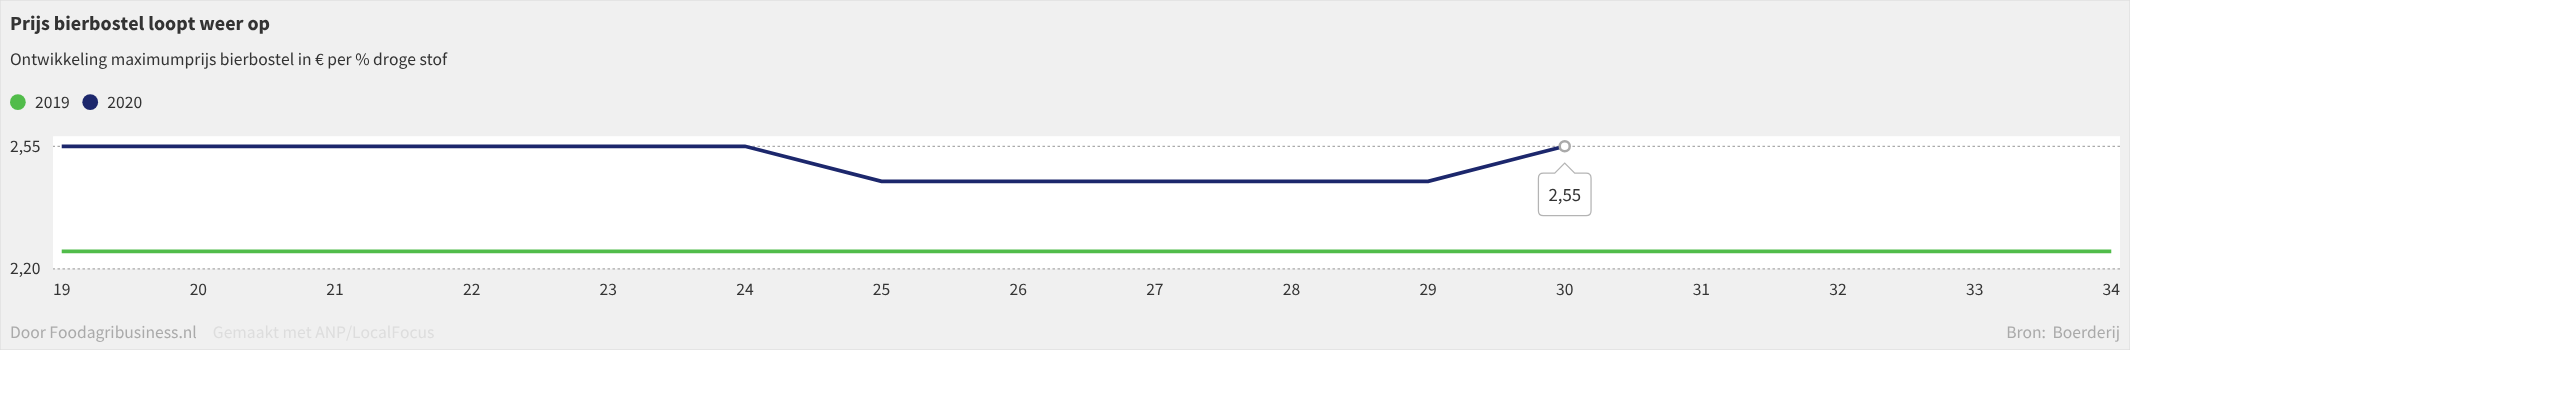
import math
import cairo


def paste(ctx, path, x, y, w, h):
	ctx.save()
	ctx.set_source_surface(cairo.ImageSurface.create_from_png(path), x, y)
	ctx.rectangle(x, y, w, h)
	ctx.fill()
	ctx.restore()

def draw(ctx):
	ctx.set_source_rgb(1, 1, 1)
	ctx.paint()
	paste(ctx, 'media/1.png', 0, 0, 2130, 350)


surface = cairo.ImageSurface(cairo.FORMAT_RGB24, 2556, 419)
ctx = cairo.Context(surface)
options = cairo.FontOptions()
options.set_hint_metrics(cairo.HINT_METRICS_OFF)
options.set_hint_style(cairo.HINT_STYLE_NONE)
ctx.set_font_options(options)
ctx.set_miter_limit(4)
draw(ctx)
surface.write_to_png('image.png')
